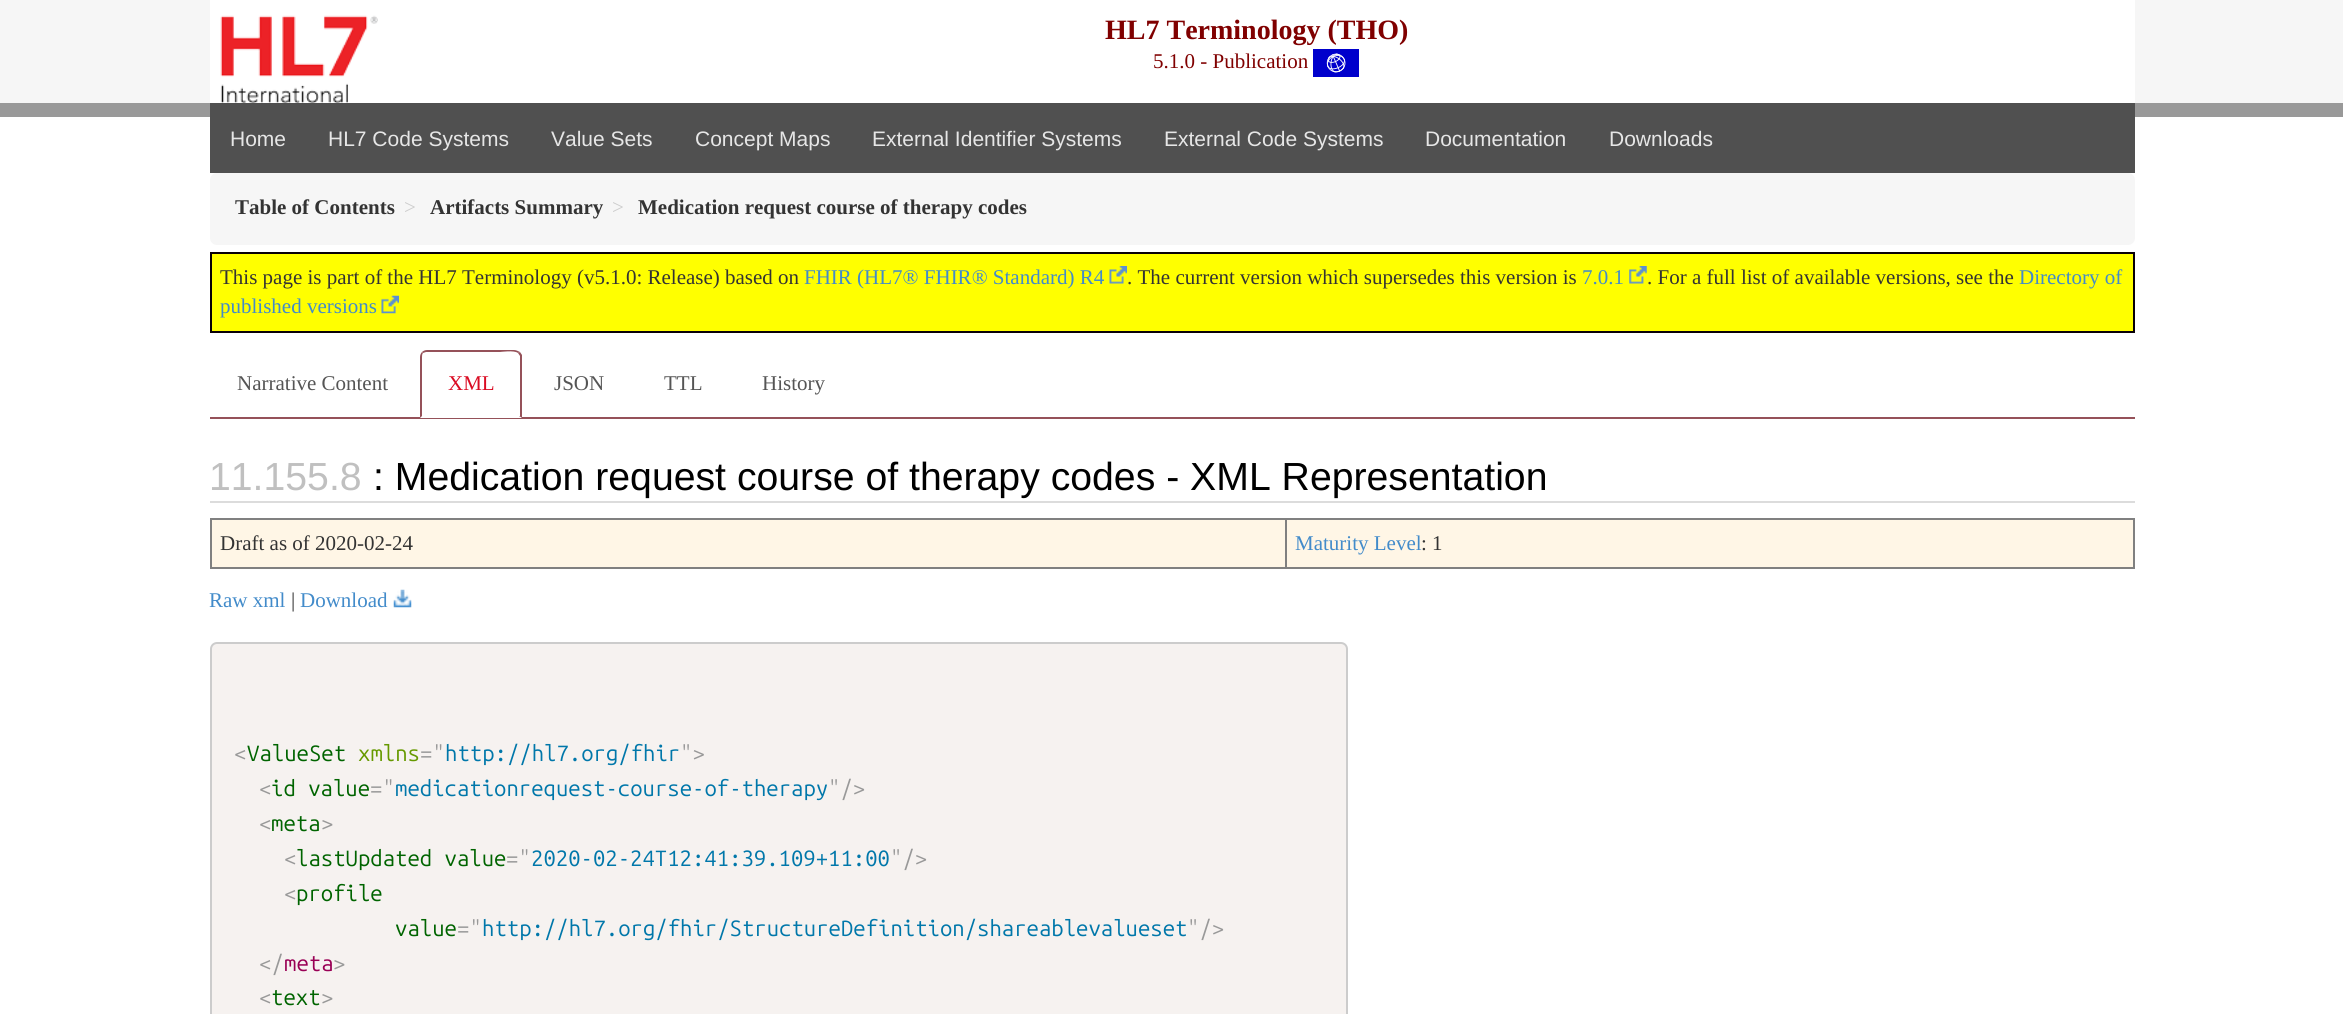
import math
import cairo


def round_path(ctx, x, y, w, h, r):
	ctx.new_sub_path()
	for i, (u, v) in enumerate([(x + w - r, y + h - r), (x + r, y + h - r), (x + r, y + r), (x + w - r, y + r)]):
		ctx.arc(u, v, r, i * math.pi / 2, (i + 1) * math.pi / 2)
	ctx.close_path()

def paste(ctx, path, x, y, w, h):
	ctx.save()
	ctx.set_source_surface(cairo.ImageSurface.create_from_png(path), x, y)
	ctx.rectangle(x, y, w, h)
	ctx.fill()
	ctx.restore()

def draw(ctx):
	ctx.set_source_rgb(1, 1, 1)
	ctx.paint()
	ctx.set_source_rgb(0.961, 0.961, 0.961)
	ctx.rectangle(0, 0, 2343, 103)
	ctx.fill()
	ctx.set_source_rgb(1, 1, 1)
	ctx.rectangle(210, 0, 1925, 103)
	ctx.fill()
	paste(ctx, 'media/1.png', 220, 15, 158, 88)
	ctx.select_font_face('Liberation Serif', cairo.FONT_SLANT_NORMAL, cairo.FONT_WEIGHT_BOLD)
	ctx.set_font_size(28)
	ctx.set_source_rgb(0.502, 0, 0)
	ctx.move_to(1105, 39)
	ctx.show_text('HL7 Terminology (THO)')
	ctx.select_font_face('Liberation Serif')
	ctx.set_font_size(21)
	ctx.move_to(1153, 68)
	ctx.show_text('5.1.0 - Publication')
	paste(ctx, 'media/2.png', 1313, 49, 46, 28)
	ctx.set_source_rgb(0.6, 0.6, 0.6)
	ctx.rectangle(0, 103, 2343, 14)
	ctx.fill()
	ctx.set_source_rgb(0.314, 0.314, 0.314)
	ctx.rectangle(210, 103, 1925, 70)
	ctx.fill()
	ctx.select_font_face('Liberation Sans')
	ctx.set_source_rgb(0.902, 0.902, 0.902)
	for x, y, s in [
		(230, 146, 'Home'),
		(328, 146, 'HL7 Code Systems'),
		(551, 146, 'Value Sets'),
		(695, 146, 'Concept Maps'),
		(872, 146, 'External Identifier Systems'),
		(1164, 146, 'External Code Systems'),
		(1425, 146, 'Documentation'),
		(1609, 146, 'Downloads'),
	]:
		ctx.move_to(x, y)
		ctx.show_text(s)
	ctx.set_source_rgb(0.961, 0.961, 0.961)
	round_path(ctx, 210, 173, 1925, 72, 7)
	ctx.fill()
	ctx.select_font_face('Liberation Serif', cairo.FONT_SLANT_NORMAL, cairo.FONT_WEIGHT_BOLD)
	ctx.set_source_rgb(0.2, 0.2, 0.2)
	ctx.move_to(235, 214)
	ctx.show_text('Table of Contents')
	ctx.select_font_face('Liberation Serif')
	ctx.set_source_rgb(0.8, 0.8, 0.8)
	ctx.move_to(404, 214)
	ctx.show_text('>')
	ctx.select_font_face('Liberation Serif', cairo.FONT_SLANT_NORMAL, cairo.FONT_WEIGHT_BOLD)
	ctx.set_source_rgb(0.2, 0.2, 0.2)
	ctx.move_to(430, 214)
	ctx.show_text('Artifacts Summary')
	ctx.select_font_face('Liberation Serif')
	ctx.set_source_rgb(0.8, 0.8, 0.8)
	ctx.move_to(612, 214)
	ctx.show_text('>')
	ctx.select_font_face('Liberation Serif', cairo.FONT_SLANT_NORMAL, cairo.FONT_WEIGHT_BOLD)
	ctx.set_source_rgb(0.2, 0.2, 0.2)
	ctx.move_to(638, 214)
	ctx.show_text('Medication request course of therapy codes')
	ctx.set_source_rgb(1, 1, 0)
	ctx.rectangle(211, 253, 1923, 79)
	ctx.fill_preserve()
	ctx.set_source_rgb(0.039, 0, 0.031)
	ctx.stroke()
	ctx.select_font_face('Liberation Serif')
	ctx.set_source_rgb(0.259, 0.545, 0.792)
	ctx.move_to(2019, 284)
	ctx.show_text('Directory of')
	ctx.move_to(220, 313)
	ctx.show_text('published versions')
	paste(ctx, 'media/3.png', 381, 295, 18, 19)
	ctx.set_source_rgb(0.2, 0.2, 0.2)
	ctx.move_to(220, 284)
	ctx.show_text('This page is part of the HL7 Terminology (v5.1.0: Release) based on')
	ctx.set_source_rgb(0.259, 0.545, 0.792)
	ctx.move_to(804, 284)
	ctx.show_text('FHIR (HL7® FHIR® Standard) R4')
	paste(ctx, 'media/4.png', 1109, 266, 18, 18)
	ctx.set_source_rgb(0.2, 0.2, 0.2)
	ctx.move_to(1127, 284)
	ctx.show_text('. The current version which supersedes this version is')
	ctx.set_source_rgb(0.259, 0.545, 0.792)
	ctx.move_to(1582, 284)
	ctx.show_text('7.0.1')
	paste(ctx, 'media/5.png', 1629, 266, 18, 18)
	ctx.set_source_rgb(0.2, 0.2, 0.2)
	ctx.move_to(1647, 284)
	ctx.show_text('. For a full list of available versions, see the')
	ctx.set_source_rgb(0.584, 0.318, 0.349)
	ctx.rectangle(210, 417, 1925, 2)
	ctx.fill()
	ctx.set_source_rgb(0.333, 0.333, 0.333)
	ctx.move_to(237, 390)
	ctx.show_text('Narrative Content')
	ctx.set_source_rgb(1, 1, 1)
	ctx.new_path()
	ctx.move_to(427, 350)
	ctx.line_to(515, 350)
	ctx.curve_to(519, 350, 522, 353, 522, 357)
	ctx.line_to(522, 418)
	ctx.line_to(420, 418)
	ctx.line_to(420, 357)
	ctx.curve_to(420, 353, 423, 350, 427, 350)
	ctx.close_path()
	ctx.fill()
	ctx.set_source_rgb(0.584, 0.318, 0.349)
	ctx.new_path()
	ctx.move_to(427, 350)
	ctx.curve_to(425, 350, 423, 351, 422, 352)
	ctx.line_to(423, 353)
	ctx.line_to(426, 352)
	ctx.line_to(500, 352)
	ctx.curve_to(501, 352, 514, 350, 518, 353)
	ctx.line_to(520, 352)
	ctx.curve_to(518, 351, 516, 350, 514, 350)
	ctx.close_path()
	ctx.fill()
	ctx.new_path()
	ctx.move_to(522, 418)
	ctx.line_to(519, 416)
	ctx.line_to(520, 416)
	ctx.line_to(520, 356)
	ctx.line_to(518, 353)
	ctx.line_to(520, 352)
	ctx.line_to(522, 355)
	ctx.close_path()
	ctx.fill()
	ctx.new_path()
	ctx.move_to(420, 357)
	ctx.line_to(420, 418)
	ctx.line_to(422, 416)
	ctx.line_to(422, 357)
	ctx.curve_to(422, 356, 422, 354, 423, 353)
	ctx.line_to(422, 352)
	ctx.curve_to(421, 353, 420, 355, 420, 357)
	ctx.close_path()
	ctx.fill()
	ctx.set_source_rgb(0.855, 0.047, 0.137)
	ctx.move_to(448, 390)
	ctx.show_text('XML')
	ctx.set_source_rgb(0.333, 0.333, 0.333)
	for x, y, s in [
		(554, 390, 'JSON'),
		(664, 390, 'TTL'),
		(762, 390, 'History'),
	]:
		ctx.move_to(x, y)
		ctx.show_text(s)
	ctx.set_source_rgb(0.863, 0.863, 0.863)
	ctx.rectangle(210, 501, 1925, 2)
	ctx.fill()
	ctx.select_font_face('Liberation Sans')
	ctx.set_font_size(39.2)
	ctx.set_source_rgb(0.753, 0.753, 0.753)
	ctx.move_to(209, 490)
	ctx.show_text('11.155.8')
	ctx.set_source_rgb(0, 0, 0)
	ctx.move_to(373, 490)
	ctx.show_text(': Medication request course of therapy codes - XML Representation')
	ctx.set_source_rgb(1, 0.961, 0.902)
	ctx.rectangle(212, 520, 1073, 47)
	ctx.fill()
	ctx.set_source_rgb(0.502, 0.502, 0.502)
	ctx.rectangle(1285, 518, 850, 2)
	ctx.rectangle(2133, 518, 2, 51)
	ctx.rectangle(1285, 567, 850, 2)
	ctx.rectangle(1285, 518, 2, 51)
	ctx.rectangle(210, 518, 1076, 2)
	ctx.rectangle(210, 567, 1076, 2)
	ctx.rectangle(210, 518, 2, 51)
	ctx.fill()
	ctx.select_font_face('Liberation Serif')
	ctx.set_font_size(21)
	ctx.set_source_rgb(0.2, 0.2, 0.2)
	ctx.move_to(220, 550)
	ctx.show_text('Draft as of 2020-02-24')
	ctx.set_source_rgb(1, 0.961, 0.902)
	ctx.rectangle(1287, 520, 846, 47)
	ctx.fill()
	ctx.set_source_rgb(0.259, 0.545, 0.792)
	ctx.move_to(1295, 550)
	ctx.show_text('Maturity Level')
	ctx.set_source_rgb(0.2, 0.2, 0.2)
	ctx.move_to(1421, 550)
	ctx.show_text(': 1')
	ctx.set_source_rgb(0.259, 0.545, 0.792)
	ctx.move_to(209, 607)
	ctx.show_text('Raw xml')
	ctx.set_source_rgb(0.2, 0.2, 0.2)
	ctx.move_to(291, 607)
	ctx.show_text('|')
	ctx.set_source_rgb(0.259, 0.545, 0.792)
	ctx.move_to(300, 607)
	ctx.show_text('Download')
	paste(ctx, 'media/6.png', 393, 589, 19, 19)
	ctx.set_source_rgb(0.961, 0.949, 0.941)
	round_path(ctx, 211, 643, 1136, 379, 6)
	ctx.fill_preserve()
	ctx.set_source_rgb(0.8, 0.8, 0.8)
	ctx.stroke()
	ctx.select_font_face('Ubuntu Mono')
	ctx.set_font_size(22.1)
	ctx.set_source_rgb(0.6, 0.6, 0.6)
	ctx.move_to(234, 761)
	ctx.show_text('<')
	ctx.set_source_rgb(0, 0.392, 0)
	ctx.move_to(247, 761)
	ctx.show_text('ValueSet')
	ctx.set_source_rgb(0.4, 0.6, 0)
	ctx.move_to(358, 761)
	ctx.show_text('xmlns')
	ctx.set_source_rgb(0.6, 0.6, 0.6)
	ctx.move_to(420, 761)
	ctx.show_text('="')
	ctx.set_source_rgb(0, 0.467, 0.667)
	ctx.move_to(445, 761)
	ctx.show_text('http://hl7.org/fhir')
	ctx.set_source_rgb(0.6, 0.6, 0.6)
	ctx.move_to(680, 761)
	ctx.show_text('">')
	ctx.move_to(259, 796)
	ctx.show_text('<')
	ctx.set_source_rgb(0, 0.392, 0)
	ctx.move_to(271, 796)
	ctx.show_text('id value')
	ctx.set_source_rgb(0.6, 0.6, 0.6)
	ctx.move_to(370, 796)
	ctx.show_text('="')
	ctx.set_source_rgb(0, 0.467, 0.667)
	ctx.move_to(395, 796)
	ctx.show_text('medicationrequest-course-of-therapy')
	ctx.set_source_rgb(0.6, 0.6, 0.6)
	ctx.move_to(828, 796)
	ctx.show_text('"/>')
	ctx.move_to(259, 831)
	ctx.show_text('<')
	ctx.set_source_rgb(0, 0.392, 0)
	ctx.move_to(271, 831)
	ctx.show_text('meta')
	ctx.set_source_rgb(0.6, 0.6, 0.6)
	ctx.move_to(321, 831)
	ctx.show_text('>')
	ctx.move_to(284, 866)
	ctx.show_text('<')
	ctx.set_source_rgb(0, 0.392, 0)
	ctx.move_to(296, 866)
	ctx.show_text('lastUpdated value')
	ctx.set_source_rgb(0.6, 0.6, 0.6)
	ctx.move_to(506, 866)
	ctx.show_text('="')
	ctx.set_source_rgb(0, 0.467, 0.667)
	ctx.move_to(531, 866)
	ctx.show_text('2020-02-24T12:41:39.109+11:00')
	ctx.set_source_rgb(0.6, 0.6, 0.6)
	ctx.move_to(890, 866)
	ctx.show_text('"/>')
	ctx.move_to(284, 901)
	ctx.show_text('<')
	ctx.set_source_rgb(0, 0.392, 0)
	ctx.move_to(296, 901)
	ctx.show_text('profile')
	ctx.move_to(395, 936)
	ctx.show_text('value')
	ctx.set_source_rgb(0.6, 0.6, 0.6)
	ctx.move_to(457, 936)
	ctx.show_text('="')
	ctx.set_source_rgb(0, 0.467, 0.667)
	ctx.move_to(482, 936)
	ctx.show_text('http://hl7.org/fhir/StructureDefinition/shareablevalueset')
	ctx.set_source_rgb(0.6, 0.6, 0.6)
	ctx.move_to(1187, 936)
	ctx.show_text('"/>')
	ctx.move_to(259, 971)
	ctx.show_text('</')
	ctx.set_source_rgb(0.6, 0, 0.333)
	ctx.move_to(284, 971)
	ctx.show_text('meta')
	ctx.set_source_rgb(0.6, 0.6, 0.6)
	ctx.move_to(333, 971)
	ctx.show_text('>')
	ctx.move_to(259, 1005)
	ctx.show_text('<')
	ctx.set_source_rgb(0, 0.392, 0)
	ctx.move_to(271, 1005)
	ctx.show_text('text')
	ctx.set_source_rgb(0.6, 0.6, 0.6)
	ctx.move_to(321, 1005)
	ctx.show_text('>')


surface = cairo.ImageSurface(cairo.FORMAT_RGB24, 2343, 1014)
ctx = cairo.Context(surface)
options = cairo.FontOptions()
options.set_hint_metrics(cairo.HINT_METRICS_OFF)
options.set_hint_style(cairo.HINT_STYLE_NONE)
ctx.set_font_options(options)
ctx.set_miter_limit(4)
draw(ctx)
surface.write_to_png('image.png')
